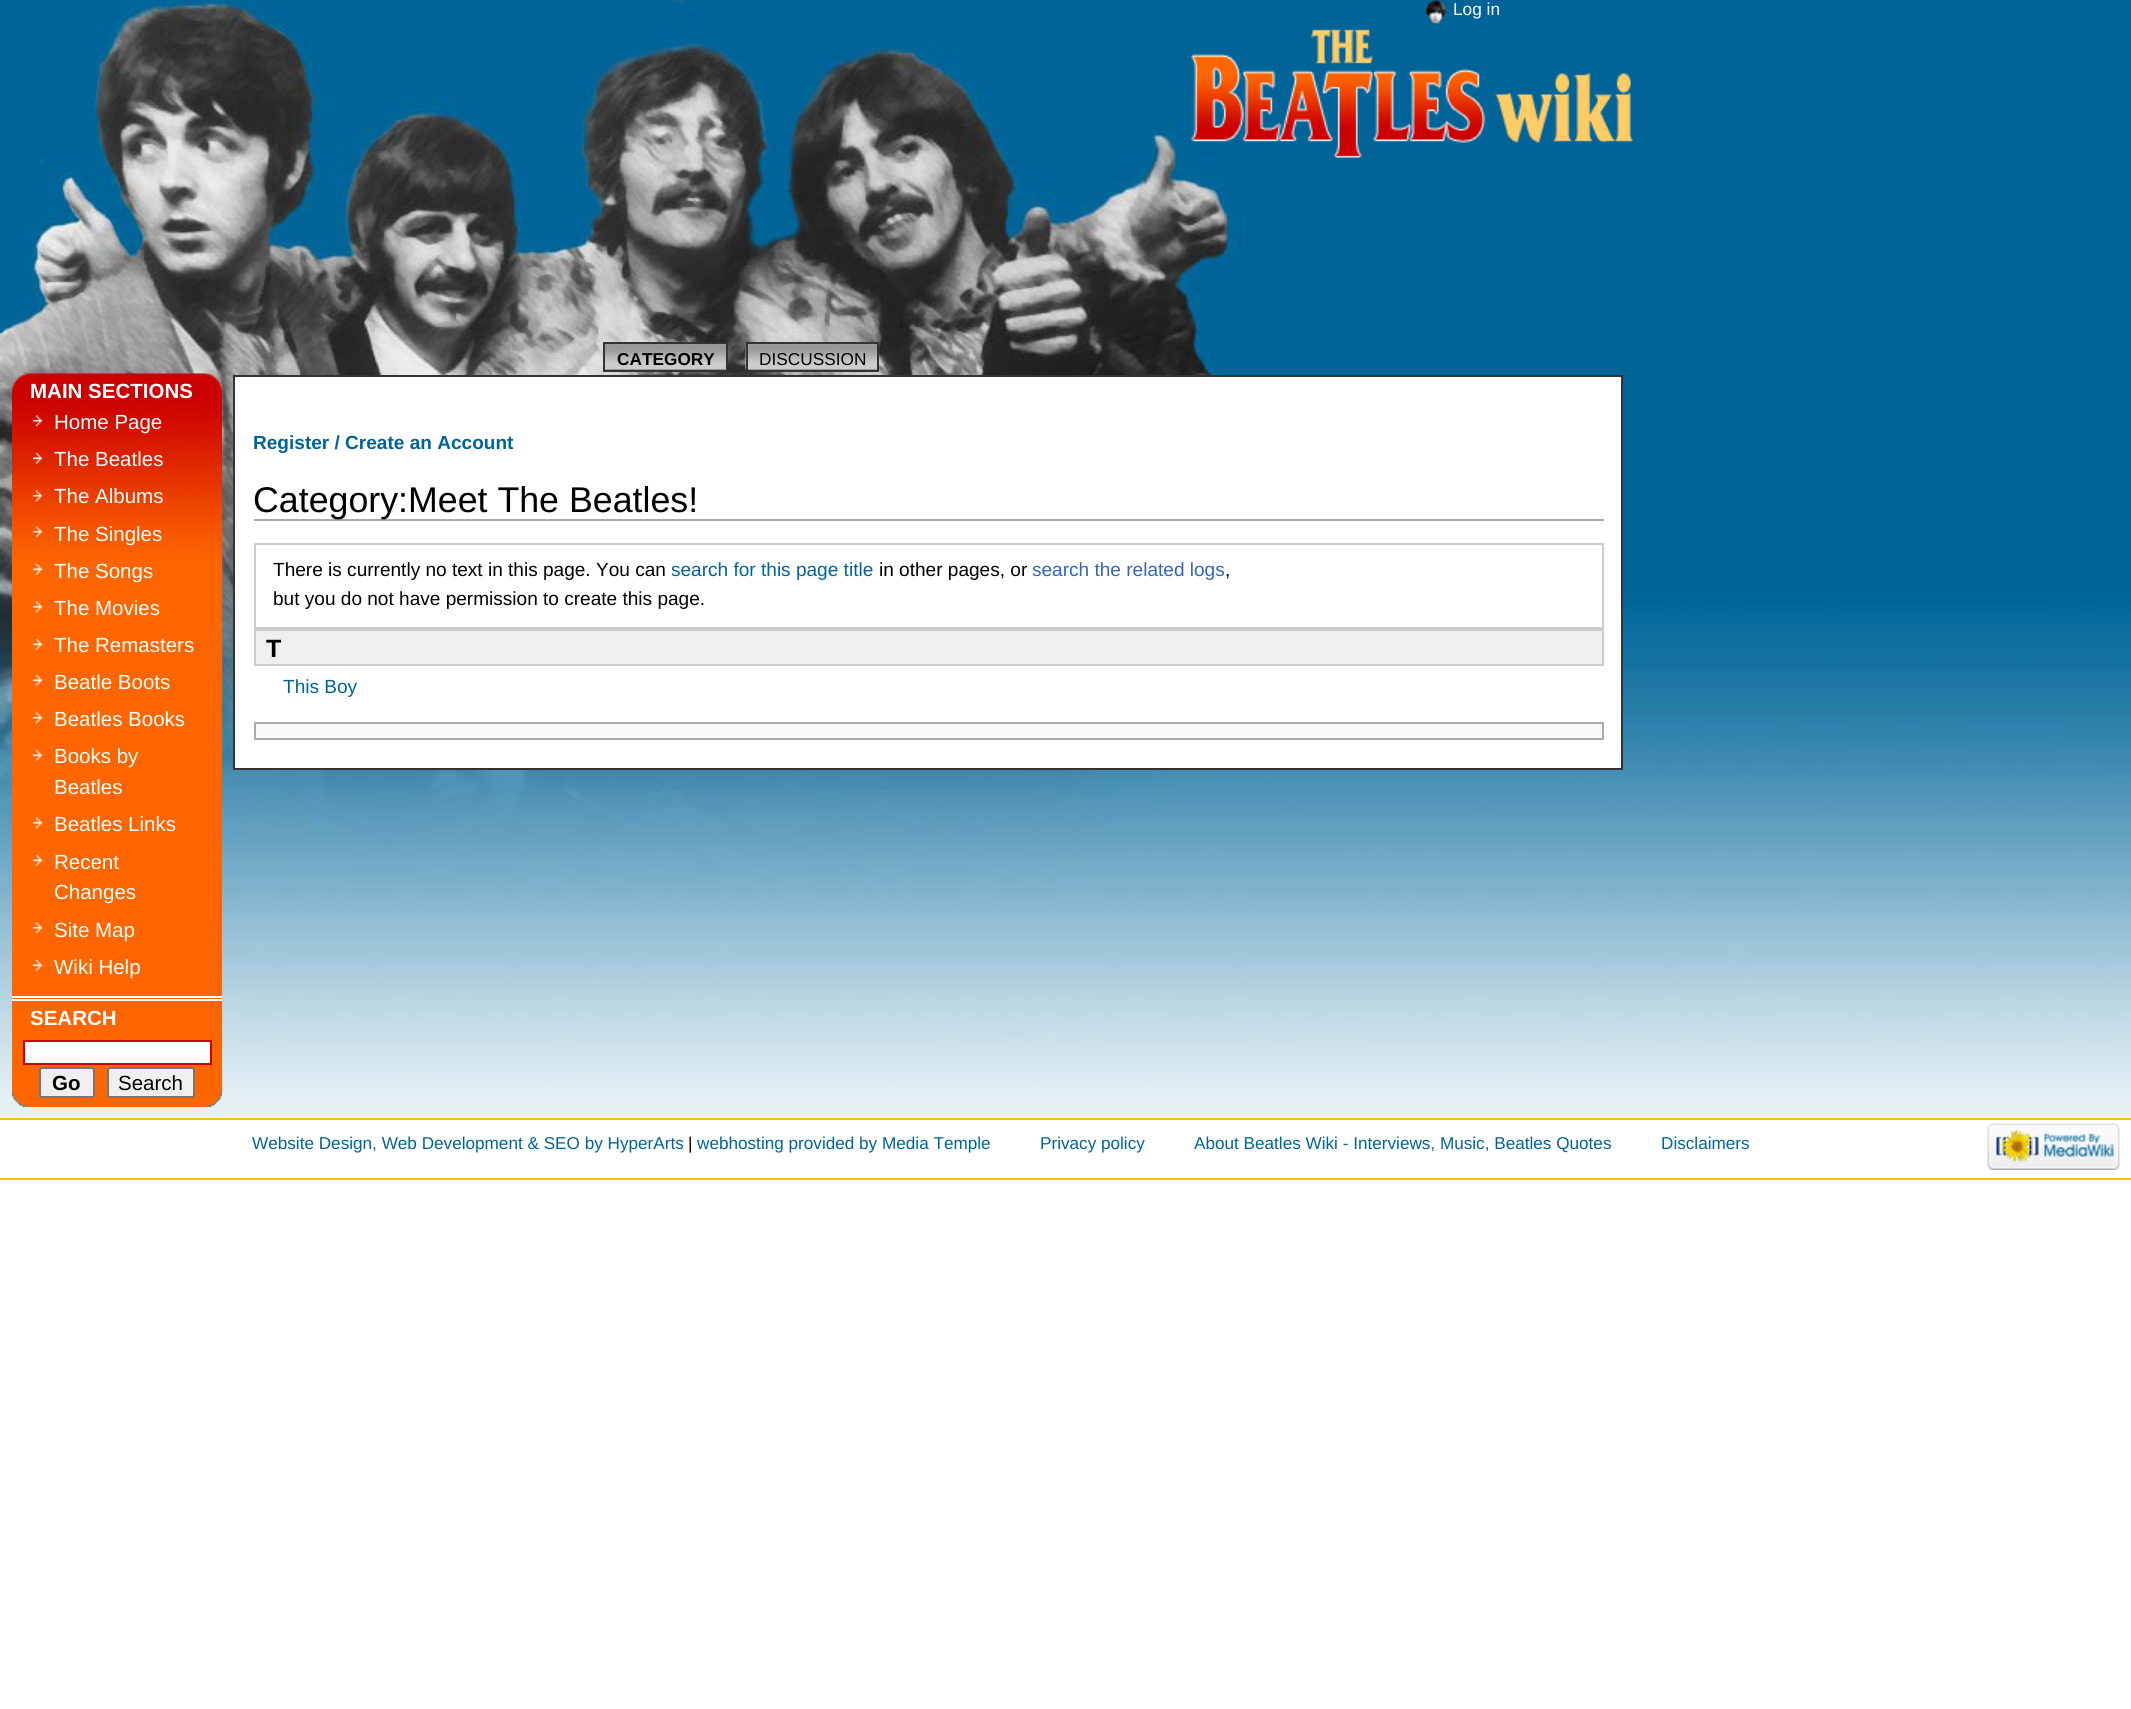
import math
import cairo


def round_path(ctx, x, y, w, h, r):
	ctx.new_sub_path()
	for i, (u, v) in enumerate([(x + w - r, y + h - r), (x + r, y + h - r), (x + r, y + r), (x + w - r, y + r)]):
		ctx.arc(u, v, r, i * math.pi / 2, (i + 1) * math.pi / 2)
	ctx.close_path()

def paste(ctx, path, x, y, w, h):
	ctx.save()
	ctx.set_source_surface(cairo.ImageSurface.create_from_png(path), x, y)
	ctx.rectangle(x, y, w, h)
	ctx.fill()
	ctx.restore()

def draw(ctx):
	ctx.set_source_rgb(1, 1, 1)
	ctx.paint()
	paste(ctx, 'media/1.png', 0, 0, 2131, 1118)
	paste(ctx, 'media/2.png', 1424, 0, 23, 24)
	ctx.select_font_face('Liberation Sans')
	ctx.set_font_size(17.25)
	ctx.set_source_rgb(1, 1, 1)
	ctx.move_to(1453, 15)
	ctx.show_text('Log in')
	paste(ctx, 'media/3.png', 1190, 28, 444, 130)
	ctx.set_source_rgb(0.6, 0.6, 0.6)
	ctx.rectangle(605, 344, 121, 26)
	ctx.fill()
	paste(ctx, 'media/4.png', 605, 350, 121, 19)
	ctx.rectangle(748, 344, 129, 26)
	ctx.fill()
	paste(ctx, 'media/5.png', 745, 346, 132, 23)
	ctx.rectangle(604, 343, 123, 28)
	ctx.set_source_rgb(0.2, 0.2, 0.2)
	ctx.stroke()
	ctx.select_font_face('Liberation Sans', cairo.FONT_SLANT_NORMAL, cairo.FONT_WEIGHT_BOLD)
	ctx.set_source_rgb(0, 0, 0)
	ctx.move_to(617, 365)
	ctx.show_text('CATEGORY')
	ctx.rectangle(747, 343, 131, 28)
	ctx.set_source_rgb(0.2, 0.2, 0.2)
	ctx.stroke()
	ctx.select_font_face('Liberation Sans')
	ctx.set_source_rgb(0, 0, 0)
	ctx.move_to(759, 365)
	ctx.show_text('DISCUSSION')
	paste(ctx, 'media/6.png', 12, 373, 210, 623)
	ctx.select_font_face('Liberation Sans', cairo.FONT_SLANT_NORMAL, cairo.FONT_WEIGHT_BOLD)
	ctx.set_font_size(20.5)
	ctx.set_source_rgb(1, 1, 1)
	ctx.move_to(30, 398)
	ctx.show_text('MAIN SECTIONS')
	paste(ctx, 'media/7.png', 32, 415, 11, 12)
	ctx.select_font_face('Liberation Sans')
	ctx.move_to(54, 429)
	ctx.show_text('Home Page')
	paste(ctx, 'media/8.png', 32, 453, 11, 11)
	ctx.move_to(54, 466)
	ctx.show_text('The Beatles')
	paste(ctx, 'media/9.png', 32, 490, 11, 12)
	ctx.move_to(54, 503)
	ctx.show_text('The Albums')
	paste(ctx, 'media/10.png', 32, 526, 11, 12)
	ctx.move_to(54, 541)
	ctx.show_text('The Singles')
	paste(ctx, 'media/11.png', 32, 564, 11, 11)
	ctx.move_to(54, 578)
	ctx.show_text('The Songs')
	paste(ctx, 'media/12.png', 32, 601, 11, 12)
	ctx.move_to(54, 615)
	ctx.show_text('The Movies')
	paste(ctx, 'media/13.png', 32, 639, 11, 11)
	ctx.move_to(54, 652)
	ctx.show_text('The Remasters')
	paste(ctx, 'media/13.png', 32, 675, 11, 11)
	ctx.move_to(54, 689)
	ctx.show_text('Beatle Boots')
	paste(ctx, 'media/12.png', 32, 712, 11, 12)
	ctx.move_to(54, 726)
	ctx.show_text('Beatles Books')
	paste(ctx, 'media/13.png', 32, 750, 11, 11)
	ctx.move_to(54, 763)
	ctx.show_text('Books by')
	ctx.move_to(54, 794)
	ctx.show_text('Beatles')
	paste(ctx, 'media/12.png', 32, 817, 11, 12)
	ctx.move_to(54, 831)
	ctx.show_text('Beatles Links')
	paste(ctx, 'media/13.png', 32, 855, 11, 11)
	ctx.move_to(54, 869)
	ctx.show_text('Recent')
	ctx.move_to(54, 899)
	ctx.show_text('Changes')
	paste(ctx, 'media/12.png', 32, 922, 11, 12)
	ctx.move_to(54, 937)
	ctx.show_text('Site Map')
	paste(ctx, 'media/13.png', 32, 960, 11, 11)
	ctx.move_to(54, 974)
	ctx.show_text('Wiki Help')
	paste(ctx, 'media/14.png', 12, 998, 210, 109)
	ctx.rectangle(12, 996, 210, 2)
	ctx.fill()
	ctx.rectangle(12, 999, 210, 2)
	ctx.fill()
	ctx.select_font_face('Liberation Sans', cairo.FONT_SLANT_NORMAL, cairo.FONT_WEIGHT_BOLD)
	ctx.move_to(30, 1025)
	ctx.show_text('SEARCH')
	ctx.rectangle(24, 1041, 187, 23)
	ctx.fill_preserve()
	ctx.set_source_rgb(0.8, 0, 0)
	ctx.stroke()
	ctx.set_source_rgb(0.937, 0.937, 0.937)
	round_path(ctx, 40, 1068, 54, 29, 2)
	ctx.fill_preserve()
	ctx.set_source_rgb(0.463, 0.463, 0.463)
	ctx.stroke()
	ctx.set_source_rgb(0, 0, 0)
	ctx.move_to(52, 1090)
	ctx.show_text('Go')
	ctx.set_source_rgb(0.937, 0.937, 0.937)
	round_path(ctx, 108, 1068, 86, 29, 2)
	ctx.fill_preserve()
	ctx.set_source_rgb(0.463, 0.463, 0.463)
	ctx.stroke()
	ctx.select_font_face('Liberation Sans')
	ctx.set_source_rgb(0, 0, 0)
	ctx.move_to(118, 1090)
	ctx.show_text('Search')
	ctx.set_source_rgb(1, 1, 1)
	ctx.rectangle(234, 376, 1388, 393)
	ctx.fill_preserve()
	ctx.set_source_rgb(0.2, 0.2, 0.2)
	ctx.stroke()
	ctx.select_font_face('Liberation Sans', cairo.FONT_SLANT_NORMAL, cairo.FONT_WEIGHT_BOLD)
	ctx.set_font_size(19.05)
	ctx.set_source_rgb(0, 0.392, 0.596)
	ctx.move_to(253, 449)
	ctx.show_text('Register / Create an Account')
	ctx.set_source_rgb(0.667, 0.667, 0.667)
	ctx.rectangle(254, 519, 1350, 2)
	ctx.fill()
	ctx.select_font_face('Liberation Sans')
	ctx.set_font_size(35.75)
	ctx.set_source_rgb(0, 0, 0)
	ctx.move_to(253, 512)
	ctx.show_text('Category:Meet The Beatles!')
	ctx.rectangle(255, 544, 1348, 84)
	ctx.set_source_rgb(0.8, 0.8, 0.8)
	ctx.stroke()
	ctx.set_font_size(19.05)
	ctx.set_source_rgb(0, 0, 0)
	ctx.move_to(273, 576)
	ctx.show_text('There is currently no text in this page. You can')
	ctx.set_source_rgb(0, 0.392, 0.596)
	ctx.move_to(671, 576)
	ctx.show_text('search for this page title')
	ctx.set_source_rgb(0, 0, 0)
	ctx.move_to(879, 576)
	ctx.show_text('in other pages, or')
	ctx.set_source_rgb(0.2, 0.4, 0.733)
	ctx.move_to(1032, 576)
	ctx.show_text('search the related logs')
	ctx.set_source_rgb(0, 0, 0)
	ctx.move_to(1225, 576)
	ctx.show_text(',')
	ctx.move_to(273, 605)
	ctx.show_text('but you do not have permission to create this page.')
	ctx.set_source_rgb(0.937, 0.937, 0.937)
	ctx.rectangle(255, 630, 1348, 35)
	ctx.fill_preserve()
	ctx.set_source_rgb(0.8, 0.8, 0.8)
	ctx.stroke()
	ctx.select_font_face('Liberation Sans', cairo.FONT_SLANT_NORMAL, cairo.FONT_WEIGHT_BOLD)
	ctx.set_font_size(25)
	ctx.set_source_rgb(0, 0, 0)
	ctx.move_to(266, 657)
	ctx.show_text('T')
	ctx.select_font_face('Liberation Sans')
	ctx.set_font_size(19.05)
	ctx.set_source_rgb(0, 0.392, 0.596)
	ctx.move_to(283, 693)
	ctx.show_text('This Boy')
	ctx.set_source_rgb(0.976, 0.976, 0.976)
	ctx.rectangle(255, 723, 1348, 16)
	ctx.fill_preserve()
	ctx.set_source_rgb(0.667, 0.667, 0.667)
	ctx.stroke()
	ctx.set_source_rgb(0.98, 0.741, 0.137)
	ctx.rectangle(0, 1118, 2131, 2)
	ctx.fill()
	ctx.rectangle(0, 1178, 2131, 2)
	ctx.fill()
	ctx.set_font_size(17.15)
	ctx.set_source_rgb(0, 0.392, 0.596)
	ctx.move_to(252, 1149)
	ctx.show_text('Website Design, Web Development & SEO by HyperArts')
	ctx.set_source_rgb(0, 0, 0)
	ctx.move_to(688, 1149)
	ctx.show_text('|')
	ctx.set_source_rgb(0, 0.392, 0.596)
	for x, y, s in [
		(697, 1149, 'webhosting provided by Media Temple'),
		(1040, 1149, 'Privacy policy'),
		(1194, 1149, 'About Beatles Wiki - Interviews, Music, Beatles Quotes'),
		(1661, 1149, 'Disclaimers'),
	]:
		ctx.move_to(x, y)
		ctx.show_text(s)
	paste(ctx, 'media/15.png', 1987, 1123, 133, 47)


surface = cairo.ImageSurface(cairo.FORMAT_RGB24, 2131, 1709)
ctx = cairo.Context(surface)
options = cairo.FontOptions()
options.set_hint_metrics(cairo.HINT_METRICS_OFF)
options.set_hint_style(cairo.HINT_STYLE_NONE)
ctx.set_font_options(options)
ctx.set_miter_limit(4)
draw(ctx)
surface.write_to_png('image.png')
